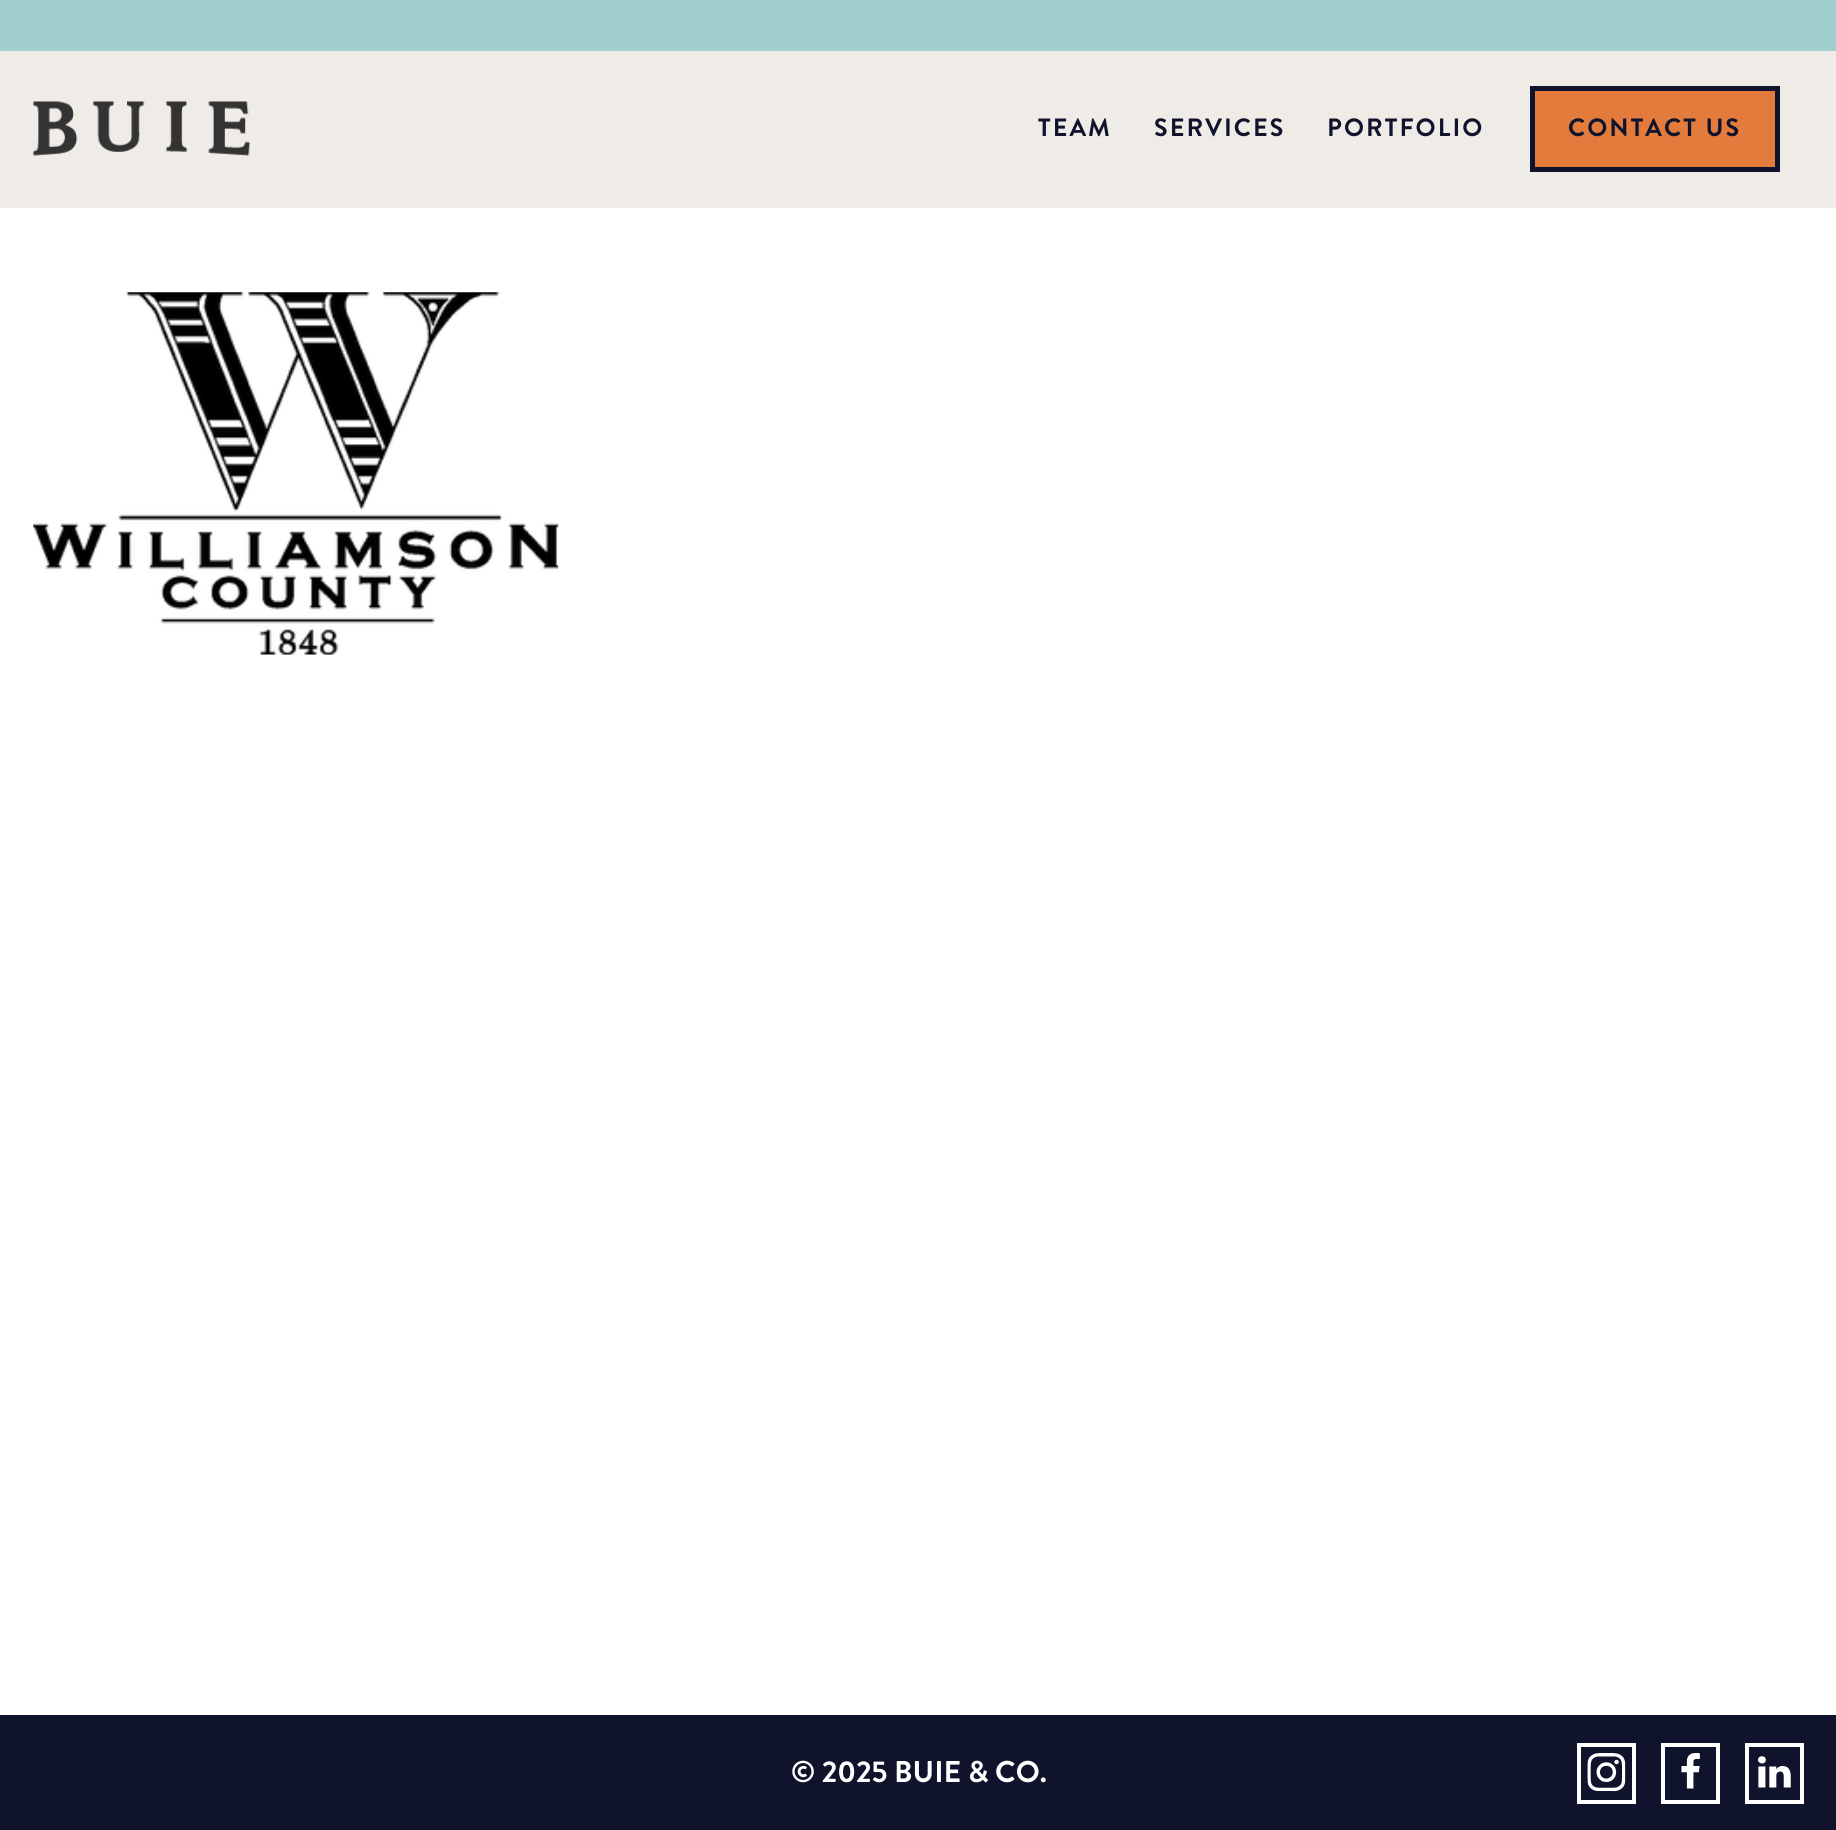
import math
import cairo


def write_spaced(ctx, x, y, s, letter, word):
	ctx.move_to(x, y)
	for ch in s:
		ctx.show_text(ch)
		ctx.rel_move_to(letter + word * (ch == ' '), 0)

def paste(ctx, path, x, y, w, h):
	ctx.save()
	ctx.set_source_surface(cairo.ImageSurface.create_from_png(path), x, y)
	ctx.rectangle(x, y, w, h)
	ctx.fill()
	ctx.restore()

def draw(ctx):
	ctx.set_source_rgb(1, 1, 1)
	ctx.paint()
	ctx.set_source_rgb(0.631, 0.812, 0.804)
	ctx.rectangle(0, 0, 1836, 51)
	ctx.fill()
	ctx.set_source_rgb(0.937, 0.918, 0.902)
	ctx.rectangle(0, 51, 1836, 157)
	ctx.fill()
	paste(ctx, 'media/1.png', 33, 101, 218, 55)
	ctx.select_font_face('Brandon Grotesque', cairo.FONT_SLANT_NORMAL, cairo.FONT_WEIGHT_BOLD)
	ctx.set_font_size(25)
	ctx.set_source_rgb(0.063, 0.075, 0.173)
	for x, y, s in [
		(1038, 136, 'TEAM'),
		(1154, 136, 'SERVICES'),
		(1327, 136, 'PORTFOLIO'),
	]:
		write_spaced(ctx, x, y, s, 2.1, 0)
	ctx.set_source_rgb(0.89, 0.482, 0.239)
	ctx.rectangle(1532.5, 88.5, 245, 81)
	ctx.fill_preserve()
	ctx.set_source_rgb(0.063, 0.075, 0.173)
	ctx.set_line_width(5)
	ctx.stroke()
	write_spaced(ctx, 1568, 136, 'CONTACT US', 2.1, 0)
	paste(ctx, 'media/2.png', 33, 292, 526, 363)
	ctx.rectangle(0, 1715, 1836, 115)
	ctx.fill()
	ctx.set_font_size(30)
	ctx.set_source_rgb(1, 1, 1)
	ctx.move_to(791, 1782)
	ctx.show_text('© 2025 BUIE & CO.')
	ctx.rectangle(1579, 1745, 55, 57)
	ctx.set_line_width(4)
	ctx.stroke()
	paste(ctx, 'media/3.png', 1587, 1753, 39, 39)
	ctx.rectangle(1663, 1745, 55, 57)
	ctx.stroke()
	paste(ctx, 'media/4.png', 1681, 1753, 19, 36)
	ctx.rectangle(1747, 1745, 55, 57)
	ctx.stroke()
	paste(ctx, 'media/5.png', 1758, 1756, 33, 32)


surface = cairo.ImageSurface(cairo.FORMAT_RGB24, 1836, 1830)
ctx = cairo.Context(surface)
options = cairo.FontOptions()
options.set_hint_metrics(cairo.HINT_METRICS_OFF)
options.set_hint_style(cairo.HINT_STYLE_NONE)
ctx.set_font_options(options)
ctx.set_miter_limit(4)
draw(ctx)
surface.write_to_png('image.png')
